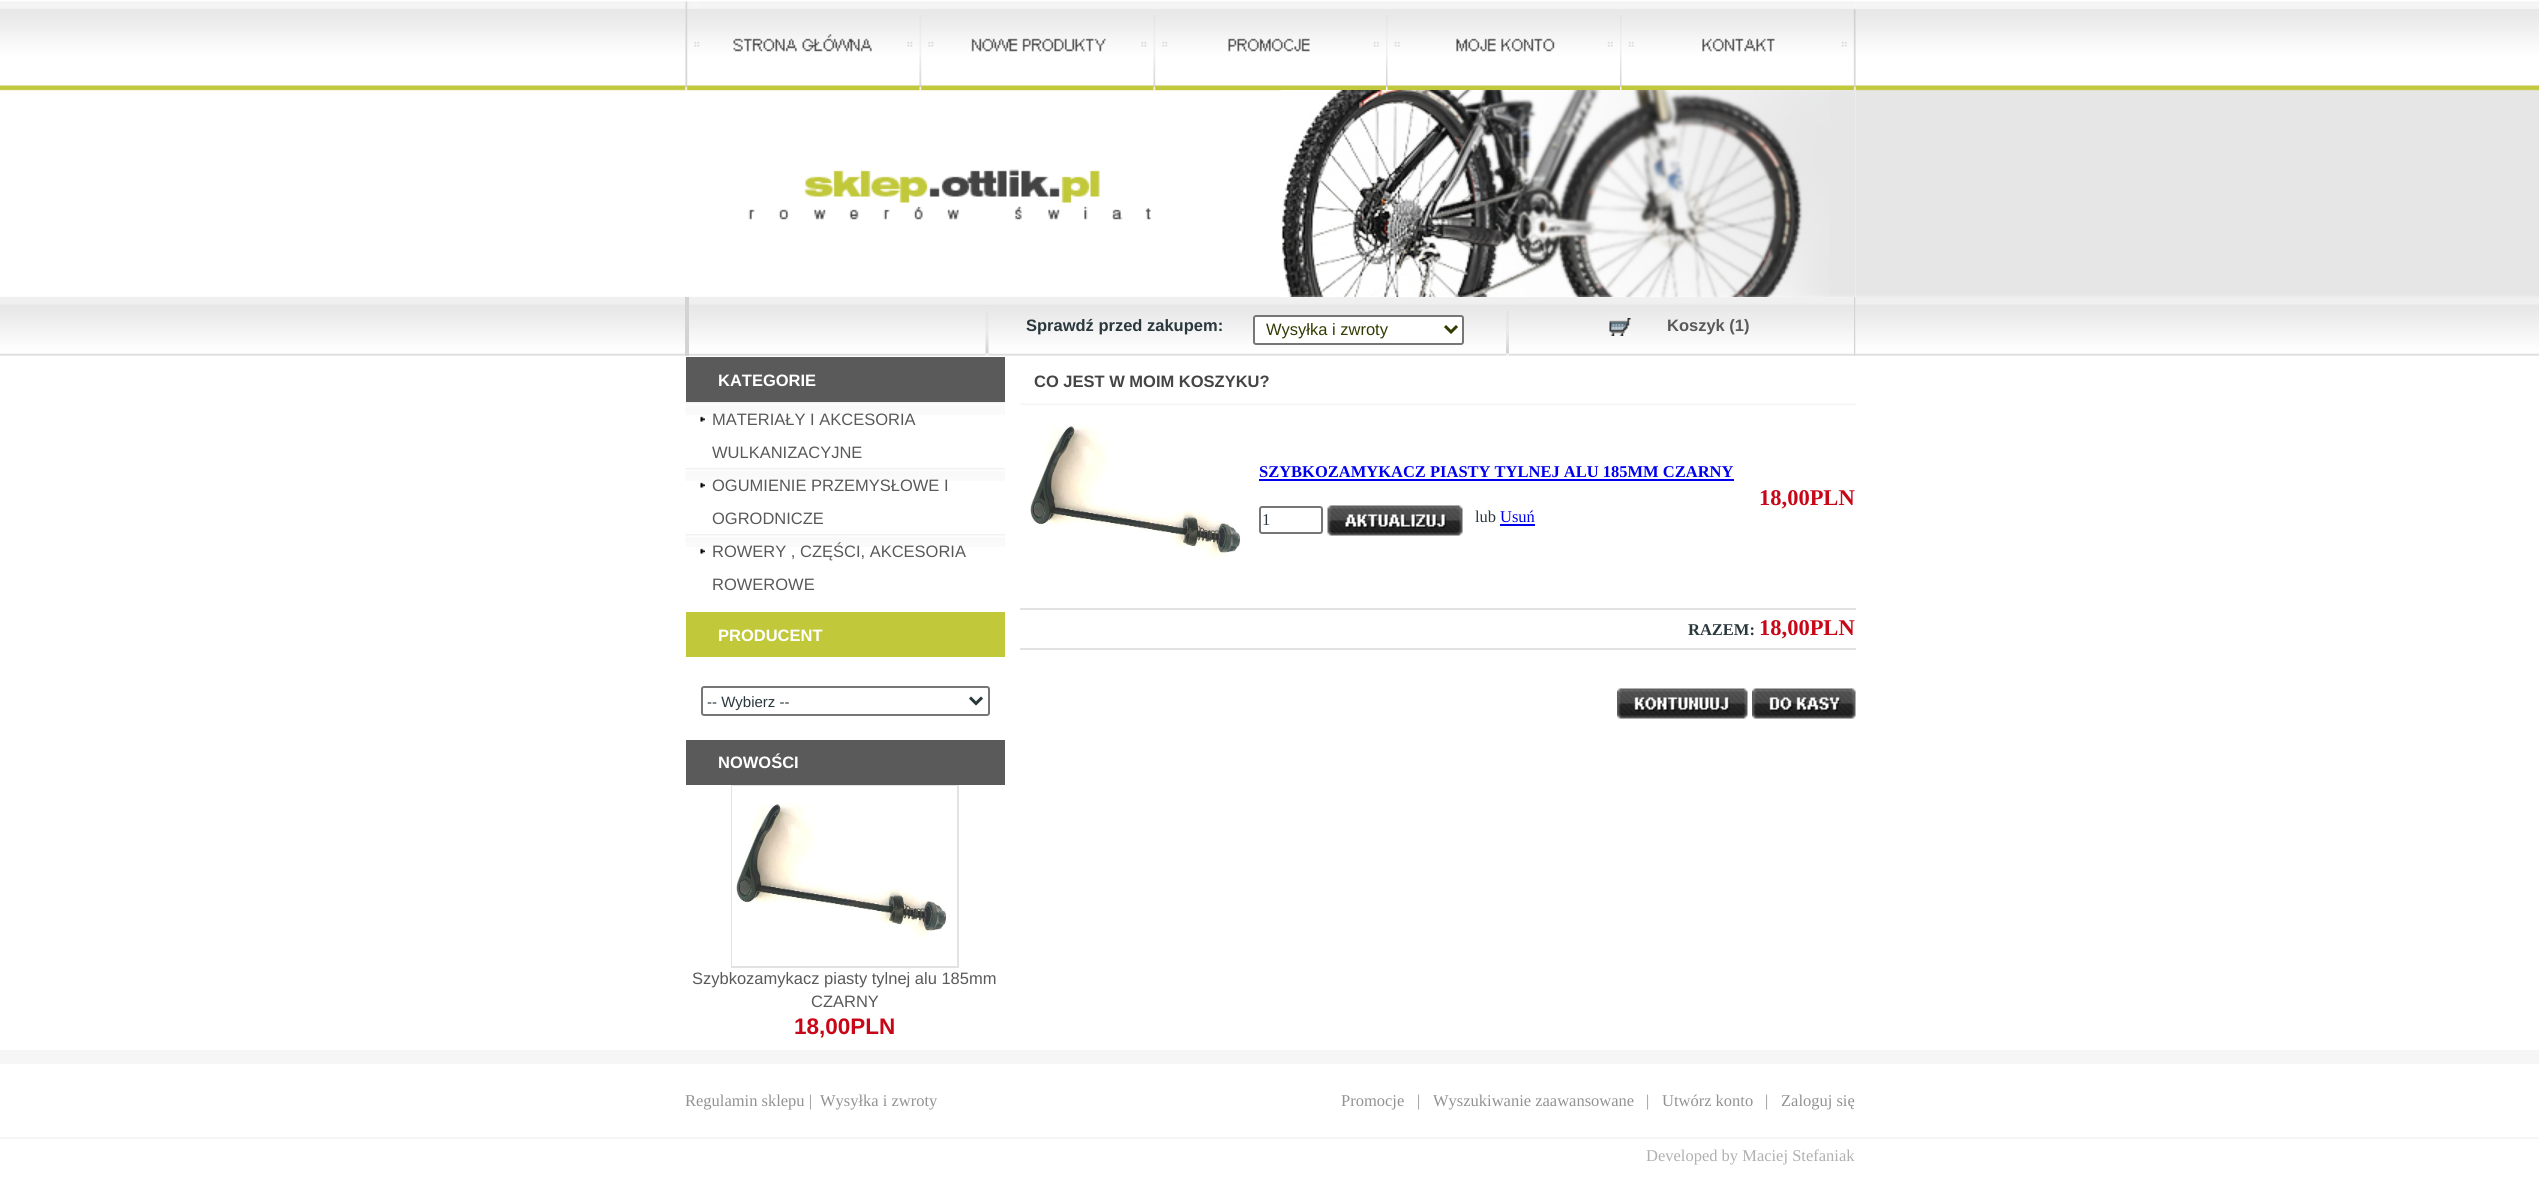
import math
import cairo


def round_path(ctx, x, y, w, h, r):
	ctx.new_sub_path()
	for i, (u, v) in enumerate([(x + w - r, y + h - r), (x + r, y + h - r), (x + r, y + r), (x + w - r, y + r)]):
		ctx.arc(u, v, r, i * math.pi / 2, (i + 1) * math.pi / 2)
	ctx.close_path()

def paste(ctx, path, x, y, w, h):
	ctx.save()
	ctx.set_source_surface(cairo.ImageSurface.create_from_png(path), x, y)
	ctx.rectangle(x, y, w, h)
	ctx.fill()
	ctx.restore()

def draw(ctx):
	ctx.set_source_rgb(1, 1, 1)
	ctx.paint()
	paste(ctx, 'media/1.png', 0, 1, 686, 355)
	paste(ctx, 'media/3.png', 685, 1, 1171, 355)
	paste(ctx, 'media/11.png', 1854, 297, 2, 59)
	paste(ctx, 'media/2.png', 1855, 1, 684, 355)
	paste(ctx, 'media/4.png', 685, 1, 235, 89)
	paste(ctx, 'media/5.png', 919, 15, 235, 75)
	paste(ctx, 'media/6.png', 1153, 15, 233, 75)
	paste(ctx, 'media/7.png', 1386, 15, 234, 75)
	paste(ctx, 'media/8.png', 1620, 8, 236, 82)
	paste(ctx, 'media/9.png', 748, 169, 403, 51)
	paste(ctx, 'media/10.png', 1281, 90, 575, 207)
	ctx.set_source_rgb(0.827, 0.827, 0.827)
	ctx.rectangle(685, 297, 4, 59)
	ctx.fill()
	paste(ctx, 'media/12.png', 985, 311, 4, 45)
	ctx.select_font_face('Liberation Sans', cairo.FONT_SLANT_NORMAL, cairo.FONT_WEIGHT_BOLD)
	ctx.set_font_size(16.5)
	ctx.set_source_rgb(0.165, 0.22, 0.239)
	ctx.move_to(1026, 331)
	ctx.show_text('Sprawdź przed zakupem:')
	ctx.set_source_rgb(1, 1, 1)
	round_path(ctx, 1254, 316, 209, 28, 2)
	ctx.fill_preserve()
	ctx.set_source_rgb(0.463, 0.463, 0.463)
	ctx.stroke()
	ctx.new_path()
	ctx.move_to(1445, 326)
	ctx.line_to(1451, 332)
	ctx.line_to(1457, 326)
	ctx.set_source_rgb(0.196, 0.231, 0.008)
	ctx.set_line_width(3)
	ctx.stroke()
	ctx.select_font_face('Liberation Sans')
	ctx.move_to(1266, 335)
	ctx.show_text('Wysyłka i zwroty')
	paste(ctx, 'media/13.png', 1506, 311, 3, 45)
	paste(ctx, 'media/14.png', 1609, 318, 22, 18)
	ctx.select_font_face('Liberation Sans', cairo.FONT_SLANT_NORMAL, cairo.FONT_WEIGHT_BOLD)
	ctx.set_source_rgb(0.349, 0.349, 0.349)
	ctx.move_to(1667, 331)
	ctx.show_text('Koszyk (1)')
	ctx.set_source_rgb(0.353, 0.353, 0.353)
	ctx.rectangle(686, 357, 319, 45)
	ctx.fill()
	ctx.set_source_rgb(1, 1, 1)
	ctx.move_to(718, 386)
	ctx.show_text('KATEGORIE')
	paste(ctx, 'media/15.png', 685, 402, 320, 13)
	paste(ctx, 'media/16.png', 700, 416, 5, 6)
	ctx.select_font_face('Liberation Sans')
	ctx.set_source_rgb(0.349, 0.349, 0.349)
	ctx.move_to(712, 425)
	ctx.show_text('MATERIAŁY I AKCESORIA')
	ctx.move_to(712, 458)
	ctx.show_text('WULKANIZACYJNE')
	paste(ctx, 'media/15.png', 685, 468, 320, 13)
	paste(ctx, 'media/16.png', 700, 482, 5, 6)
	ctx.move_to(712, 491)
	ctx.show_text('OGUMIENIE PRZEMYSŁOWE I')
	ctx.move_to(712, 524)
	ctx.show_text('OGRODNICZE')
	paste(ctx, 'media/15.png', 685, 534, 320, 13)
	paste(ctx, 'media/16.png', 700, 548, 5, 6)
	ctx.move_to(712, 557)
	ctx.show_text('ROWERY , CZĘŚCI, AKCESORIA')
	ctx.move_to(712, 590)
	ctx.show_text('ROWEROWE')
	ctx.set_source_rgb(0.757, 0.784, 0.227)
	ctx.rectangle(686, 612, 319, 45)
	ctx.fill()
	ctx.select_font_face('Liberation Sans', cairo.FONT_SLANT_NORMAL, cairo.FONT_WEIGHT_BOLD)
	ctx.set_source_rgb(1, 1, 1)
	ctx.move_to(718, 641)
	ctx.show_text('PRODUCENT')
	round_path(ctx, 702, 687, 287, 28, 2)
	ctx.set_source_rgb(0.463, 0.463, 0.463)
	ctx.set_line_width(2)
	ctx.stroke()
	ctx.new_path()
	ctx.move_to(970, 697.5)
	ctx.line_to(976, 703.5)
	ctx.line_to(982, 697.5)
	ctx.set_source_rgb(0.165, 0.22, 0.239)
	ctx.set_line_width(3)
	ctx.stroke()
	ctx.select_font_face('Liberation Sans')
	ctx.set_font_size(15)
	ctx.move_to(707, 707)
	ctx.show_text('-- Wybierz --')
	ctx.set_source_rgb(0.353, 0.353, 0.353)
	ctx.rectangle(686, 740, 319, 45)
	ctx.fill()
	ctx.select_font_face('Liberation Sans', cairo.FONT_SLANT_NORMAL, cairo.FONT_WEIGHT_BOLD)
	ctx.set_font_size(16.5)
	ctx.set_source_rgb(1, 1, 1)
	ctx.move_to(718, 768)
	ctx.show_text('NOWOŚCI')
	ctx.rectangle(732, 786, 226, 181)
	ctx.set_source_rgb(0.886, 0.886, 0.886)
	ctx.set_line_width(2)
	ctx.stroke()
	paste(ctx, 'media/17.png', 732, 786, 225, 180)
	ctx.select_font_face('Liberation Sans')
	ctx.set_source_rgb(0.349, 0.349, 0.349)
	ctx.move_to(692, 984)
	ctx.show_text('Szybkozamykacz piasty tylnej alu 185mm')
	ctx.move_to(811, 1007)
	ctx.show_text('CZARNY')
	ctx.select_font_face('Liberation Sans', cairo.FONT_SLANT_NORMAL, cairo.FONT_WEIGHT_BOLD)
	ctx.set_font_size(22.5)
	ctx.set_source_rgb(0.788, 0.024, 0.09)
	ctx.move_to(794, 1034)
	ctx.show_text('18,00PLN')
	paste(ctx, 'media/18.png', 1020, 403, 836, 2)
	ctx.set_font_size(16.5)
	ctx.set_source_rgb(0.271, 0.271, 0.271)
	ctx.move_to(1034, 387)
	ctx.show_text('CO JEST W MOIM KOSZYKU?')
	paste(ctx, 'media/19.png', 1030, 425, 211, 134)
	ctx.select_font_face('Liberation Serif', cairo.FONT_SLANT_NORMAL, cairo.FONT_WEIGHT_BOLD)
	ctx.set_source_rgb(0, 0, 0.933)
	ctx.move_to(1259, 477)
	ctx.show_text('SZYBKOZAMYKACZ PIASTY TYLNEJ ALU 185MM CZARNY')
	ctx.rectangle(1259, 479, 475, 2)
	ctx.fill()
	round_path(ctx, 1260, 507, 62, 26, 2)
	ctx.set_source_rgb(0.463, 0.463, 0.463)
	ctx.stroke()
	ctx.select_font_face('Liberation Serif')
	ctx.set_source_rgb(0.165, 0.22, 0.239)
	ctx.move_to(1262, 525)
	ctx.show_text('1')
	paste(ctx, 'media/20.png', 1327, 505, 136, 31)
	ctx.move_to(1475, 522)
	ctx.show_text('lub')
	ctx.set_source_rgb(0, 0, 0.933)
	ctx.move_to(1500, 522)
	ctx.show_text('Usuń')
	ctx.rectangle(1500, 524, 35, 2)
	ctx.fill()
	ctx.select_font_face('Liberation Serif', cairo.FONT_SLANT_NORMAL, cairo.FONT_WEIGHT_BOLD)
	ctx.set_font_size(22.5)
	ctx.set_source_rgb(0.788, 0.024, 0.09)
	ctx.move_to(1759, 505)
	ctx.show_text('18,00PLN')
	ctx.set_source_rgb(0.886, 0.886, 0.886)
	ctx.rectangle(1020, 608, 836, 2)
	ctx.fill()
	ctx.rectangle(1020, 648, 836, 2)
	ctx.fill()
	ctx.set_font_size(16.5)
	ctx.set_source_rgb(0.165, 0.22, 0.239)
	ctx.move_to(1688, 635)
	ctx.show_text('RAZEM:')
	ctx.set_font_size(22.5)
	ctx.set_source_rgb(0.788, 0.024, 0.09)
	ctx.move_to(1759, 635)
	ctx.show_text('18,00PLN')
	paste(ctx, 'media/21.png', 1617, 688, 131, 31)
	paste(ctx, 'media/22.png', 1752, 688, 104, 31)
	ctx.set_source_rgb(0.961, 0.961, 0.961)
	ctx.rectangle(0, 1050, 2539, 14)
	ctx.fill()
	ctx.select_font_face('Liberation Serif')
	ctx.set_font_size(16.5)
	ctx.set_source_rgb(0.573, 0.573, 0.573)
	for x, y, s in [
		(685, 1106, 'Regulamin sklepu |'),
		(820, 1106, 'Wysyłka i zwroty'),
		(1341, 1106, 'Promocje'),
		(1417, 1106, '|'),
		(1433, 1106, 'Wyszukiwanie zaawansowane'),
		(1646, 1106, '|'),
		(1662, 1106, 'Utwórz konto'),
		(1765, 1106, '|'),
		(1781, 1106, 'Zaloguj się'),
	]:
		ctx.move_to(x, y)
		ctx.show_text(s)
	ctx.set_source_rgb(0.961, 0.961, 0.961)
	ctx.rectangle(0, 1137, 2539, 2)
	ctx.fill()
	ctx.set_source_rgb(0.69, 0.69, 0.69)
	ctx.move_to(1646, 1161)
	ctx.show_text('Developed by Maciej Stefaniak')


surface = cairo.ImageSurface(cairo.FORMAT_RGB24, 2539, 1193)
ctx = cairo.Context(surface)
options = cairo.FontOptions()
options.set_hint_metrics(cairo.HINT_METRICS_OFF)
options.set_hint_style(cairo.HINT_STYLE_NONE)
ctx.set_font_options(options)
ctx.set_miter_limit(4)
draw(ctx)
surface.write_to_png('image.png')
